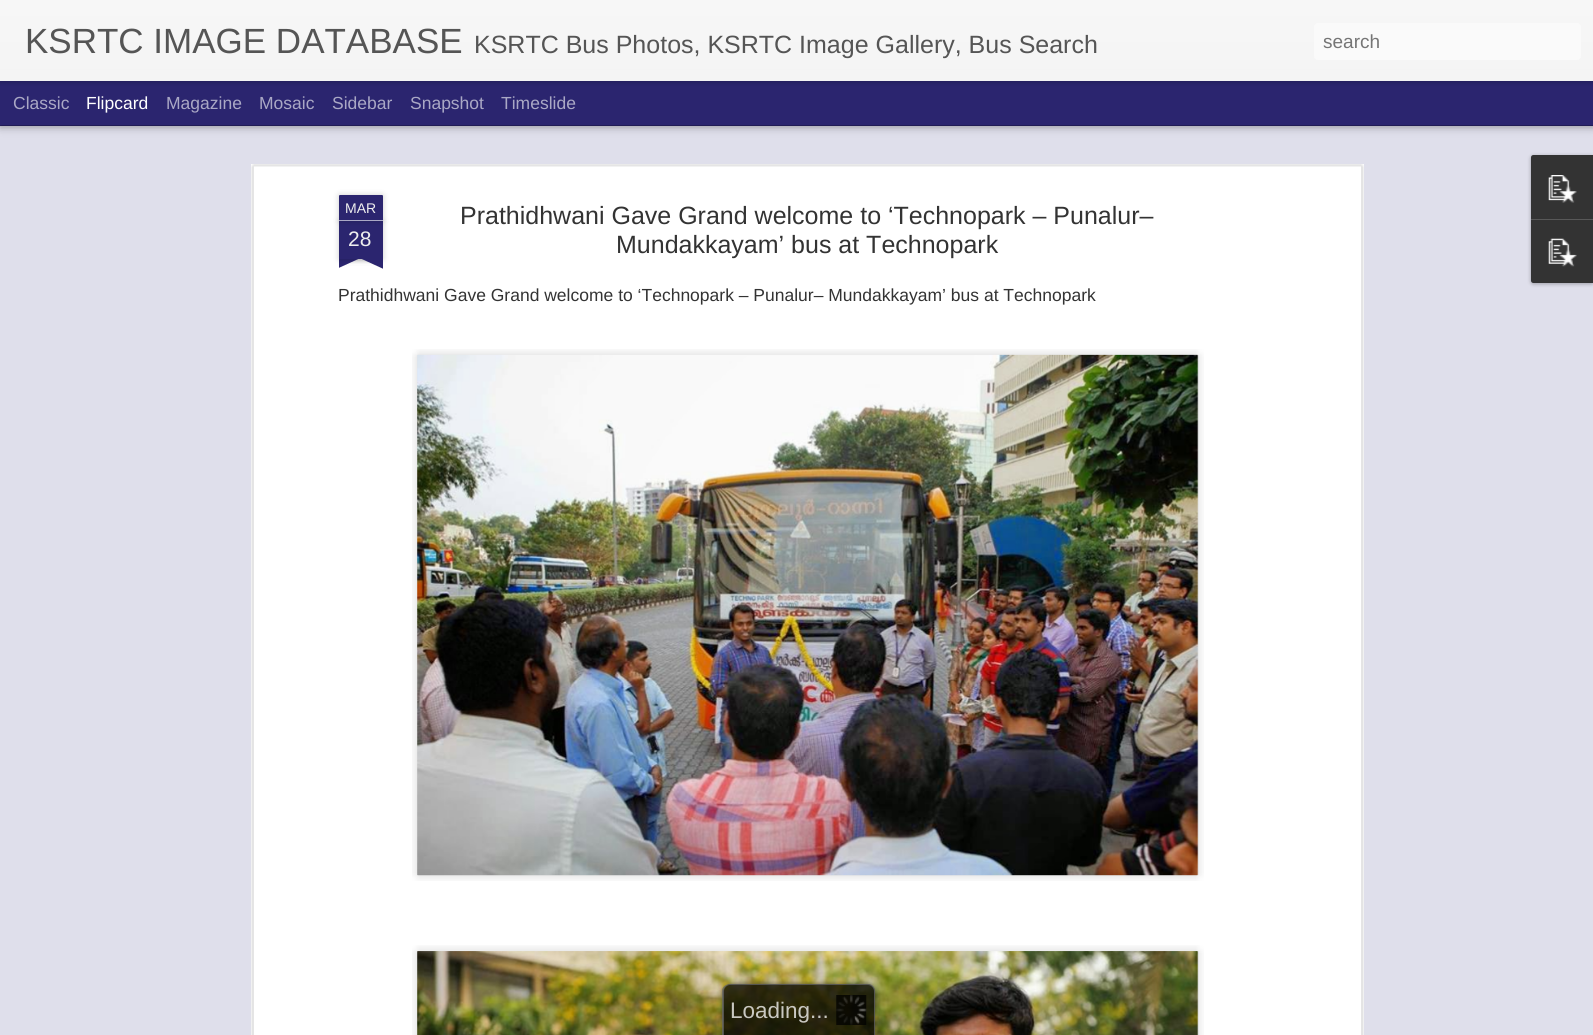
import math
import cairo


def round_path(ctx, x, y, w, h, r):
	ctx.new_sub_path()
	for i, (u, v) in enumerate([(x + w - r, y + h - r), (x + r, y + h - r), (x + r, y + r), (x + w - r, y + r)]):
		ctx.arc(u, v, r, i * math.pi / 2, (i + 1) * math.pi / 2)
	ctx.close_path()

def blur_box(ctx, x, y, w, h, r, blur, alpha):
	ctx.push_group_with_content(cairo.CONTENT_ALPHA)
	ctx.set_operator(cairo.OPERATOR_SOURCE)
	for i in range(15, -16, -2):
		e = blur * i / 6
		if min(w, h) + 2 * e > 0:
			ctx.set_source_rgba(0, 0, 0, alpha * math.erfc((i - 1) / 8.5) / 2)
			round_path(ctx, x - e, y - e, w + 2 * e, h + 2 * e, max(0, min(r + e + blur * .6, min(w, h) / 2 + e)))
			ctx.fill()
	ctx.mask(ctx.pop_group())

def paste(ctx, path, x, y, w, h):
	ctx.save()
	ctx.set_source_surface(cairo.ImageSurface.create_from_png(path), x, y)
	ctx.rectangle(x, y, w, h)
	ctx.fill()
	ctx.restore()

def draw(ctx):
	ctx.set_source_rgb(0.169, 0.145, 0.435)
	ctx.paint()
	ctx.set_source_rgb(0.875, 0.875, 0.918)
	ctx.rectangle(0, 126, 1593, 909)
	ctx.fill()
	ctx.set_source_rgb(0, 0, 0)
	blur_box(ctx, 0, 81, 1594, 44, 0, 5, 0.5)
	ctx.set_source_rgb(0.169, 0.145, 0.435)
	ctx.rectangle(0, 81, 1593, 44)
	ctx.fill()
	ctx.set_source_rgb(0, 0, 0)
	blur_box(ctx, 0, 0, 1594, 81, 0, 3, 0.3)
	gradient = cairo.LinearGradient(0, 0, 0, 81)
	gradient.add_color_stop_rgba(0, 0.969, 0.969, 0.969, 1)
	gradient.add_color_stop_rgba(1, 0.957, 0.957, 0.957, 1)
	ctx.set_source(gradient)
	ctx.rectangle(0, 0, 1593, 81)
	ctx.fill()
	ctx.select_font_face('Liberation Sans')
	ctx.set_font_size(35)
	ctx.set_source_rgb(0.333, 0.333, 0.333)
	ctx.move_to(25, 53)
	ctx.show_text('KSRTC IMAGE DATABASE')
	ctx.set_font_size(25)
	ctx.move_to(474, 53)
	ctx.show_text('KSRTC Bus Photos, KSRTC Image Gallery, Bus Search')
	ctx.set_source_rgb(0.98, 0.98, 0.98)
	round_path(ctx, 1314, 23, 267, 37, 4)
	ctx.fill()
	ctx.set_font_size(19)
	ctx.set_source_rgb(0.459, 0.459, 0.459)
	ctx.move_to(1323, 48)
	ctx.show_text('search')
	ctx.set_font_size(17.5)
	ctx.set_source_rgb(0.667, 0.659, 0.773)
	ctx.move_to(13, 109)
	ctx.show_text('Classic')
	ctx.set_source_rgb(1, 1, 1)
	ctx.move_to(86, 109)
	ctx.show_text('Flipcard')
	ctx.set_source_rgb(0.667, 0.659, 0.773)
	for x, y, s in [
		(166, 109, 'Magazine'),
		(259, 109, 'Mosaic'),
		(332, 109, 'Sidebar'),
		(410, 109, 'Snapshot'),
		(501, 109, 'Timeslide'),
	]:
		ctx.move_to(x, y)
		ctx.show_text(s)
	ctx.set_source_rgb(1, 1, 1)
	ctx.rectangle(251, 164, 1113, 871)
	ctx.fill()
	paste(ctx, 'media/1.png', 251, 164, 1113, 871)
	ctx.set_source_rgb(0, 0, 0)
	blur_box(ctx, 339, 221, 44, 38, 0, 3, 0.2)
	ctx.set_source_rgb(0.169, 0.145, 0.435)
	ctx.rectangle(339, 221, 44, 38)
	ctx.fill()
	ctx.set_source_rgb(0, 0, 0)
	blur_box(ctx, 339, 195, 44, 26, 1, 3, 0.2)
	ctx.set_source_rgb(0.169, 0.145, 0.435)
	ctx.new_path()
	ctx.move_to(340, 195)
	ctx.line_to(382, 195)
	ctx.curve_to(382.5, 195, 383, 195.5, 383, 196)
	ctx.line_to(383, 221)
	ctx.line_to(339, 221)
	ctx.line_to(339, 196)
	ctx.curve_to(339, 195.5, 339.5, 195, 340, 195)
	ctx.close_path()
	ctx.fill()
	ctx.set_source_rgb(0.667, 0.659, 0.773)
	ctx.rectangle(339, 220, 44, 1)
	ctx.fill()
	ctx.set_font_size(14)
	ctx.set_source_rgb(0.933, 0.933, 0.933)
	ctx.move_to(345, 213)
	ctx.show_text('MAR')
	ctx.set_font_size(21)
	ctx.move_to(348, 246)
	ctx.show_text('28')
	ctx.save()
	ctx.rectangle(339, 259, 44, 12)
	ctx.clip()
	ctx.set_source_rgb(0, 0, 0)
	blur_box(ctx, 328, 246, 62, 13, 0, 3, 0.2)
	ctx.restore()
	ctx.save()
	ctx.rectangle(339, 259, 44, 12)
	ctx.clip()
	ctx.set_source_rgb(0.169, 0.145, 0.435)
	ctx.new_path()
	ctx.move_to(327, 260)
	ctx.line_to(384, 234)
	ctx.line_to(389, 245)
	ctx.line_to(332, 271)
	ctx.close_path()
	ctx.fill()
	ctx.restore()
	ctx.save()
	ctx.rectangle(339, 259, 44, 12)
	ctx.clip()
	ctx.set_source_rgb(0, 0, 0)
	blur_box(ctx, 331, 246, 63, 13, 0, 3, 0.2)
	ctx.restore()
	ctx.save()
	ctx.rectangle(339, 259, 44, 12)
	ctx.clip()
	ctx.set_source_rgb(0.169, 0.145, 0.435)
	ctx.new_path()
	ctx.move_to(336, 234)
	ctx.line_to(393, 260)
	ctx.line_to(388, 271)
	ctx.line_to(331, 245)
	ctx.close_path()
	ctx.fill()
	ctx.restore()
	ctx.set_font_size(25)
	ctx.set_source_rgb(0.2, 0.2, 0.2)
	ctx.move_to(460, 224)
	ctx.show_text('Prathidhwani Gave Grand welcome to ‘Technopark – Punalur–')
	ctx.move_to(616, 253)
	ctx.show_text('Mundakkayam’ bus at Technopark')
	ctx.set_font_size(17.5)
	ctx.move_to(338, 301)
	ctx.show_text('Prathidhwani Gave Grand welcome to ‘Technopark – Punalur– Mundakkayam’ bus at Technopark')
	paste(ctx, 'media/2.png', 412, 349, 792, 532)
	paste(ctx, 'media/3.png', 417, 354, 781, 522)
	paste(ctx, 'media/4.png', 412, 945, 792, 90)
	paste(ctx, 'media/5.png', 417, 951, 781, 84)
	ctx.set_source_rgb(0, 0, 0)
	blur_box(ctx, 1531, 156, 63, 128, 2.5, 2, 0.3)
	ctx.set_source_rgb(0.2, 0.2, 0.2)
	ctx.new_path()
	ctx.move_to(1533.5, 155)
	ctx.line_to(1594, 155)
	ctx.line_to(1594, 219)
	ctx.line_to(1531, 219)
	ctx.line_to(1531, 157.5)
	ctx.curve_to(1531, 156, 1532, 155, 1533.5, 155)
	ctx.close_path()
	ctx.fill()
	paste(ctx, 'media/6.png', 1548, 175, 29, 28)
	ctx.new_path()
	ctx.move_to(1531, 219)
	ctx.line_to(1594, 219)
	ctx.line_to(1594, 283)
	ctx.line_to(1533.5, 283)
	ctx.curve_to(1532, 283, 1531, 282, 1531, 280.5)
	ctx.close_path()
	ctx.fill()
	ctx.set_source_rgb(0.345, 0.345, 0.345)
	ctx.rectangle(1531, 219, 62, 1)
	ctx.fill()
	paste(ctx, 'media/7.png', 1548, 238, 29, 29)
	ctx.save()
	ctx.set_fill_rule(cairo.FILL_RULE_EVEN_ODD)
	ctx.new_path()
	ctx.move_to(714, 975)
	ctx.line_to(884, 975)
	ctx.line_to(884, 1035)
	ctx.line_to(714, 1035)
	ctx.close_path()
	ctx.move_to(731, 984)
	ctx.line_to(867, 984)
	ctx.curve_to(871.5, 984, 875, 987.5, 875, 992)
	ctx.line_to(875, 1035)
	ctx.line_to(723, 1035)
	ctx.line_to(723, 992)
	ctx.curve_to(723, 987.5, 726.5, 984, 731, 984)
	ctx.close_path()
	ctx.clip()
	ctx.set_source_rgb(0.2, 0.2, 0.2)
	blur_box(ctx, 723, 984, 152, 51, 8, 2.5, 0.75)
	ctx.restore()
	ctx.set_source_rgba(0, 0, 0, 0.75)
	ctx.new_path()
	ctx.move_to(731, 984)
	ctx.line_to(867, 984)
	ctx.curve_to(871.5, 984, 875, 987.5, 875, 992)
	ctx.line_to(875, 1035)
	ctx.line_to(723, 1035)
	ctx.line_to(723, 992)
	ctx.curve_to(723, 987.5, 726.5, 984, 731, 984)
	ctx.close_path()
	ctx.fill()
	ctx.set_source_rgba(0.4, 0.4, 0.4, 0.75)
	ctx.set_fill_rule(cairo.FILL_RULE_EVEN_ODD)
	ctx.new_path()
	ctx.move_to(730, 984)
	ctx.line_to(868, 984)
	ctx.curve_to(872, 984, 875, 987, 875, 991)
	ctx.line_to(875, 1035)
	ctx.line_to(722, 1035)
	ctx.line_to(722, 991)
	ctx.curve_to(722, 987, 726, 984, 730, 984)
	ctx.close_path()
	ctx.move_to(730, 985)
	ctx.line_to(868, 985)
	ctx.curve_to(871, 985, 874, 988, 874, 991)
	ctx.line_to(874, 1035)
	ctx.line_to(724, 1035)
	ctx.line_to(724, 991)
	ctx.curve_to(724, 988, 727, 985, 730, 985)
	ctx.close_path()
	ctx.fill()
	paste(ctx, 'media/8.png', 836, 995, 31, 30)
	ctx.set_font_size(22.5)
	ctx.set_source_rgb(0.788, 0.784, 0.757)
	ctx.move_to(730, 1018)
	ctx.show_text('Loading')
	ctx.move_to(810, 1018)
	ctx.show_text('...')


surface = cairo.ImageSurface(cairo.FORMAT_RGB24, 1593, 1035)
ctx = cairo.Context(surface)
options = cairo.FontOptions()
options.set_hint_metrics(cairo.HINT_METRICS_OFF)
options.set_hint_style(cairo.HINT_STYLE_NONE)
ctx.set_font_options(options)
ctx.set_miter_limit(4)
draw(ctx)
surface.write_to_png('image.png')
